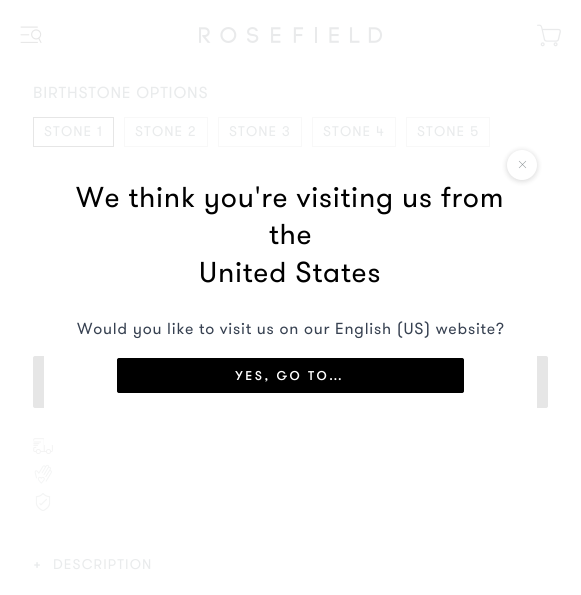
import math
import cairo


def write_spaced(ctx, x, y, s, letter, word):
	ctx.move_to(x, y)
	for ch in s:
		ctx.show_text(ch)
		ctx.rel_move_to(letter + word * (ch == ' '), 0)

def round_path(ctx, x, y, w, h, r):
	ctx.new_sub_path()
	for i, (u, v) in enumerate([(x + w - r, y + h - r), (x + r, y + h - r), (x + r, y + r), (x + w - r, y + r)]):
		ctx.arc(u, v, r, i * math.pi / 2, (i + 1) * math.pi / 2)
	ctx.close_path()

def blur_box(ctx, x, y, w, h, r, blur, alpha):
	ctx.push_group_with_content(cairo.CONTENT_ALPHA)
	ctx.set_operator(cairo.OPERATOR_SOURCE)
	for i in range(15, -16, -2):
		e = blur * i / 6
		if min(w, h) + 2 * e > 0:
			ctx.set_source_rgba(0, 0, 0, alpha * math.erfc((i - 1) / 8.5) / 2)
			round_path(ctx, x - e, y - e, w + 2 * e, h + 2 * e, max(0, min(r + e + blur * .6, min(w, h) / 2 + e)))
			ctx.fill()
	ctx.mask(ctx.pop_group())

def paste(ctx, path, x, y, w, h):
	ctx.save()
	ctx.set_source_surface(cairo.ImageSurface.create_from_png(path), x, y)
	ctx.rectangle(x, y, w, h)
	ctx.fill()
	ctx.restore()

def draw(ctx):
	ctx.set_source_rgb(1, 1, 1)
	ctx.paint()
	paste(ctx, 'media/1.png', 20, 26, 22, 17)
	paste(ctx, 'media/2.png', 199, 27, 184, 16)
	paste(ctx, 'media/3.png', 537, 24, 24, 23)
	ctx.select_font_face('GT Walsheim')
	ctx.set_font_size(16)
	ctx.set_source_rgb(0.914, 0.918, 0.922)
	write_spaced(ctx, 33, 98, 'BIRTHSTONE OPTIONS', 0.8, 0)
	ctx.rectangle(33.5, 117.5, 80, 29)
	ctx.set_source_rgb(0.902, 0.902, 0.902)
	ctx.set_line_width(1)
	ctx.stroke()
	ctx.set_font_size(14)
	ctx.set_source_rgb(0.914, 0.918, 0.922)
	write_spaced(ctx, 44, 136, 'STONE 1', 1.1, 0)
	ctx.rectangle(124.5, 117.5, 83, 29)
	ctx.set_source_rgb(0.969, 0.969, 0.969)
	ctx.stroke()
	ctx.set_source_rgb(0.914, 0.918, 0.922)
	write_spaced(ctx, 135, 136, 'STONE 2', 1.1, 0)
	ctx.rectangle(218.5, 117.5, 83, 29)
	ctx.set_source_rgb(0.969, 0.969, 0.969)
	ctx.stroke()
	ctx.set_source_rgb(0.914, 0.918, 0.922)
	write_spaced(ctx, 229, 136, 'STONE 3', 1.1, 0)
	ctx.rectangle(312.5, 117.5, 83, 29)
	ctx.set_source_rgb(0.969, 0.969, 0.969)
	ctx.stroke()
	ctx.set_source_rgb(0.914, 0.918, 0.922)
	write_spaced(ctx, 323, 136, 'STONE 4', 1.1, 0)
	ctx.rectangle(406.5, 117.5, 83, 29)
	ctx.set_source_rgb(0.969, 0.969, 0.969)
	ctx.stroke()
	ctx.set_source_rgb(0.914, 0.918, 0.922)
	write_spaced(ctx, 417, 136, 'STONE 5', 1.1, 0)
	ctx.set_source_rgb(0.902, 0.902, 0.902)
	round_path(ctx, 33.5, 356.5, 514, 51, 1.5)
	ctx.fill_preserve()
	ctx.stroke()
	paste(ctx, 'media/4.png', 33, 438, 20, 16)
	paste(ctx, 'media/5.png', 34, 464, 18, 20)
	paste(ctx, 'media/6.png', 35, 493, 16, 18)
	ctx.select_font_face('GT Walsheim Medium')
	ctx.set_source_rgb(0.914, 0.918, 0.922)
	write_spaced(ctx, 33, 569, '+', 1.1, 0)
	ctx.select_font_face('GT Walsheim')
	write_spaced(ctx, 53, 569, 'DESCRIPTION', 1.1, 0)
	ctx.set_source_rgb(1, 1, 1)
	ctx.rectangle(44, 356, 493, 89)
	ctx.fill()
	ctx.set_source_rgb(0, 0, 0)
	blur_box(ctx, 507, 151, 30, 30, 15, 3, 0.16)
	ctx.set_source_rgb(1, 1, 1)
	ctx.arc(522, 165, 15, 0, 2 * math.pi)
	ctx.fill()
	ctx.new_path()
	ctx.move_to(526, 168)
	ctx.line_to(519, 161)
	ctx.move_to(526, 161)
	ctx.line_to(519, 168)
	ctx.set_source_rgb(0.529, 0.557, 0.569)
	ctx.set_line_width(0.5)
	ctx.stroke()
	ctx.set_font_size(28.75)
	ctx.set_source_rgb(0, 0, 0)
	for x, y, s in [
		(76, 207, 'We think you\'re visiting us from'),
		(269, 244, 'the'),
		(199, 282, 'United States'),
	]:
		write_spaced(ctx, x, y, s, 0.8, 0)
	ctx.set_font_size(16)
	ctx.set_source_rgb(0.216, 0.255, 0.318)
	write_spaced(ctx, 77, 334, 'Would you like to visit us on our English (US) website?', 0.8, 0)
	ctx.set_source_rgb(0, 0, 0)
	round_path(ctx, 117.5, 358.5, 346, 34, 1.5)
	ctx.fill_preserve()
	ctx.set_line_width(1)
	ctx.stroke()
	ctx.select_font_face('GT Walsheim Medium')
	ctx.set_font_size(12.75)
	ctx.set_source_rgb(1, 1, 1)
	write_spaced(ctx, 235, 380, 'YES, GO TO…', 2.5, 0)


surface = cairo.ImageSurface(cairo.FORMAT_RGB24, 581, 595)
ctx = cairo.Context(surface)
options = cairo.FontOptions()
options.set_hint_metrics(cairo.HINT_METRICS_OFF)
options.set_hint_style(cairo.HINT_STYLE_NONE)
ctx.set_font_options(options)
ctx.set_miter_limit(4)
draw(ctx)
surface.write_to_png('image.png')
